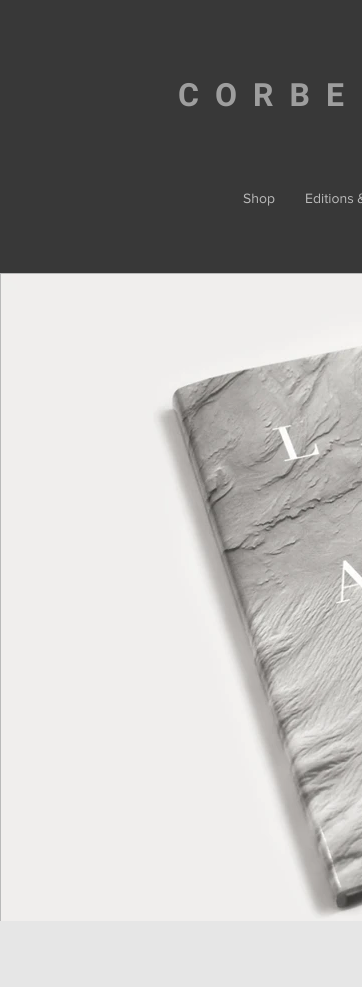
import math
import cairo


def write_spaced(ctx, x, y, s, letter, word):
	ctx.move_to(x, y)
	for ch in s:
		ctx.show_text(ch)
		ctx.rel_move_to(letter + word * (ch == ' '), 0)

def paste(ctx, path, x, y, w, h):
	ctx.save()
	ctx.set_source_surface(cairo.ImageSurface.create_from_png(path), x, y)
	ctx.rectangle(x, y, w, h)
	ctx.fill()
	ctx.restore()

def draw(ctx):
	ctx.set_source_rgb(0.902, 0.902, 0.902)
	ctx.paint()
	ctx.set_source_rgb(0.22, 0.22, 0.22)
	ctx.rectangle(0, 0, 362, 273)
	ctx.fill()
	ctx.select_font_face('Roboto', cairo.FONT_SLANT_NORMAL, cairo.FONT_WEIGHT_BOLD)
	ctx.set_font_size(32)
	ctx.set_source_rgb(0.62, 0.62, 0.62)
	write_spaced(ctx, 178, 106, 'CORBE', 16, 0)
	ctx.select_font_face('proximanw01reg')
	ctx.set_font_size(14)
	ctx.set_source_rgb(0.729, 0.729, 0.729)
	ctx.move_to(243, 203)
	ctx.show_text('Shop')
	ctx.move_to(305, 203)
	ctx.show_text('Editions &')
	ctx.set_source_rgb(0.725, 0.725, 0.725)
	ctx.rectangle(0, 273, 362, 648)
	ctx.fill()
	paste(ctx, 'media/1.png', 1, 274, 361, 647)


surface = cairo.ImageSurface(cairo.FORMAT_RGB24, 362, 987)
ctx = cairo.Context(surface)
options = cairo.FontOptions()
options.set_hint_metrics(cairo.HINT_METRICS_OFF)
options.set_hint_style(cairo.HINT_STYLE_NONE)
ctx.set_font_options(options)
ctx.set_miter_limit(4)
draw(ctx)
surface.write_to_png('image.png')
